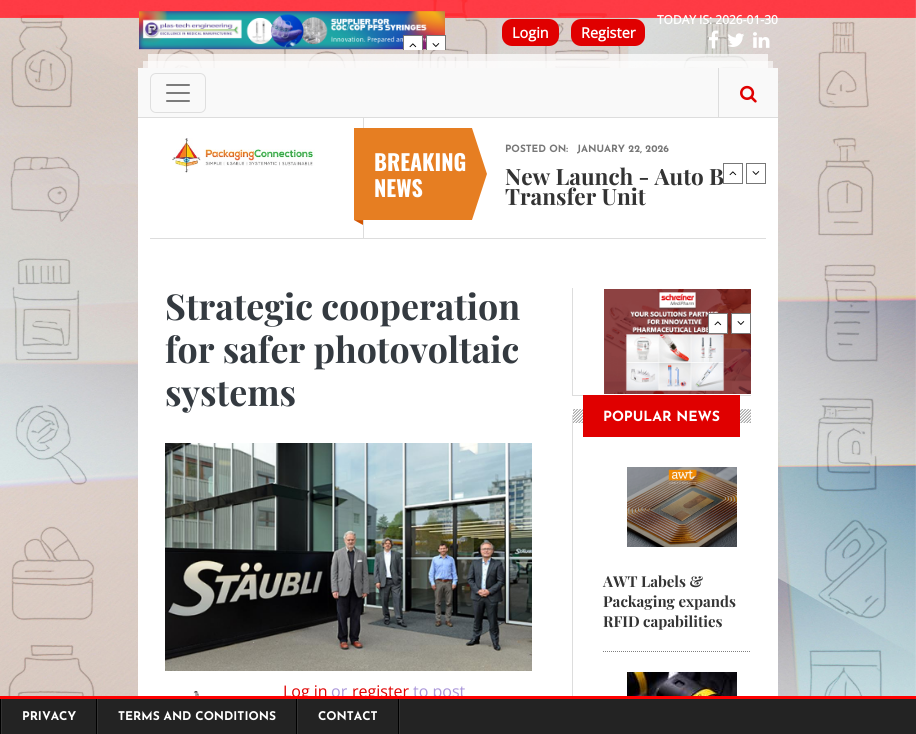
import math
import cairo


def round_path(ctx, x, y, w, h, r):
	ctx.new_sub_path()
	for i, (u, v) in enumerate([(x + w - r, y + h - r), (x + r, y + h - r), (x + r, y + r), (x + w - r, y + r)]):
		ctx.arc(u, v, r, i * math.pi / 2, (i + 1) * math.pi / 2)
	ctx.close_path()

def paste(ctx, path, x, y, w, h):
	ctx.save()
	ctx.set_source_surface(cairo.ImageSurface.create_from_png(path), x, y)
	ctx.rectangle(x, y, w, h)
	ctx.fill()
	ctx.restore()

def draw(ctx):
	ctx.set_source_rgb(1, 1, 1)
	ctx.paint()
	paste(ctx, 'media/1.png', 0, 0, 916, 696)
	paste(ctx, 'media/2.png', 139, 11, 306, 39)
	ctx.set_source_rgb(1, 1, 1)
	ctx.rectangle(404, 36, 18, 14)
	ctx.fill()
	ctx.save()
	ctx.rectangle(138, 10, 308, 40)
	ctx.clip()
	ctx.rectangle(403.5, 35.5, 19, 20)
	ctx.set_source_rgb(0.467, 0.467, 0.467)
	ctx.set_line_width(1)
	ctx.stroke()
	ctx.restore()
	paste(ctx, 'media/3.png', 409, 43, 8, 5)
	ctx.rectangle(427, 36, 18, 14)
	ctx.fill()
	ctx.save()
	ctx.rectangle(138, 10, 308, 40)
	ctx.clip()
	ctx.rectangle(426.5, 35.5, 19, 20)
	ctx.set_source_rgb(0.467, 0.467, 0.467)
	ctx.set_line_width(1)
	ctx.stroke()
	ctx.restore()
	paste(ctx, 'media/4.png', 432, 43, 8, 4)
	ctx.select_font_face('Open Sans', cairo.FONT_SLANT_NORMAL, cairo.FONT_WEIGHT_BOLD)
	ctx.set_font_size(12)
	ctx.move_to(657, 24)
	ctx.show_text('TODAY IS: 2026-01-30')
	paste(ctx, 'media/5.png', 709, 30, 10, 19)
	paste(ctx, 'media/6.png', 727, 33, 17, 14)
	paste(ctx, 'media/7.png', 753, 32, 17, 16)
	ctx.set_source_rgb(0.878, 0, 0)
	round_path(ctx, 502, 19, 57, 27, 10)
	ctx.fill()
	ctx.set_font_size(14.5)
	ctx.set_source_rgb(1, 1, 1)
	ctx.move_to(512, 38)
	ctx.show_text('Login')
	ctx.set_source_rgb(0.878, 0, 0)
	round_path(ctx, 571, 19, 74, 27, 10)
	ctx.fill()
	ctx.set_source_rgb(1, 1, 1)
	ctx.move_to(581, 38)
	ctx.show_text('Register')
	ctx.rectangle(138, 118, 640, 578)
	ctx.fill()
	ctx.set_source_rgba(1, 1, 1, 0.6)
	ctx.rectangle(143, 61, 630, 7)
	ctx.fill()
	ctx.set_source_rgba(1, 1, 1, 0.7)
	ctx.rectangle(148, 54, 620, 14)
	ctx.fill()
	ctx.set_source_rgb(0.973, 0.973, 0.973)
	ctx.rectangle(138, 68, 640, 49)
	ctx.fill()
	ctx.set_source_rgb(0.867, 0.867, 0.867)
	ctx.rectangle(138, 117, 640, 1)
	ctx.fill()
	round_path(ctx, 150.5, 73.5, 55, 39, 5.5)
	ctx.set_source_rgb(0.875, 0.875, 0.875)
	ctx.set_line_width(1)
	ctx.stroke()
	paste(ctx, 'media/8.png', 166, 84, 24, 18)
	ctx.set_source_rgb(0.867, 0.867, 0.867)
	ctx.rectangle(718, 68, 1, 50)
	ctx.fill()
	paste(ctx, 'media/9.png', 740, 85, 17, 18)
	ctx.rectangle(150, 238, 616, 1)
	ctx.fill()
	paste(ctx, 'media/10.png', 172, 138, 143, 35)
	ctx.rectangle(363, 118, 1, 120)
	ctx.fill()
	paste(ctx, 'media/11.png', 354, 128, 133, 97)
	ctx.select_font_face('Oswald', cairo.FONT_SLANT_NORMAL, cairo.FONT_WEIGHT_BOLD)
	ctx.set_font_size(22)
	ctx.set_source_rgb(1, 1, 1)
	ctx.move_to(374, 171)
	ctx.show_text('BREAKING')
	ctx.move_to(374, 197)
	ctx.show_text('NEWS')
	ctx.select_font_face('Josefin Sans', cairo.FONT_SLANT_NORMAL, cairo.FONT_WEIGHT_BOLD)
	ctx.set_font_size(10)
	ctx.set_source_rgb(0.467, 0.467, 0.467)
	ctx.move_to(505, 152)
	ctx.show_text('POSTED ON:')
	ctx.move_to(577, 152)
	ctx.show_text('JANUARY 22, 2026')
	ctx.select_font_face('Playfair Display', cairo.FONT_SLANT_NORMAL, cairo.FONT_WEIGHT_BOLD)
	ctx.set_font_size(22.5)
	ctx.set_source_rgb(0.2, 0.2, 0.2)
	ctx.move_to(505, 185)
	ctx.show_text('New Launch - Auto B')
	ctx.move_to(505, 205)
	ctx.show_text('Transfer Unit')
	ctx.rectangle(723.5, 163.5, 19, 20)
	ctx.set_source_rgb(0.467, 0.467, 0.467)
	ctx.stroke()
	paste(ctx, 'media/3.png', 729, 171, 8, 5)
	ctx.rectangle(746.5, 163.5, 19, 20)
	ctx.stroke()
	paste(ctx, 'media/4.png', 752, 171, 8, 4)
	ctx.set_font_size(35.75)
	ctx.set_source_rgb(0.204, 0.227, 0.251)
	for x, y, s in [
		(165, 320, 'Strategic cooperation'),
		(165, 363, 'for safer photovoltaic'),
		(165, 406, 'systems'),
	]:
		ctx.move_to(x, y)
		ctx.show_text(s)
	paste(ctx, 'media/12.png', 165, 443, 367, 228)
	paste(ctx, 'media/13.png', 193, 691, 6, 5)
	ctx.select_font_face('Open Sans')
	ctx.set_font_size(16)
	ctx.set_source_rgb(0.878, 0, 0)
	ctx.move_to(283, 697)
	ctx.show_text('Log in')
	ctx.set_source_rgb(0.667, 0.588, 0.855)
	ctx.move_to(331, 697)
	ctx.show_text('or')
	ctx.set_source_rgb(0.878, 0, 0)
	ctx.move_to(352, 697)
	ctx.show_text('register')
	ctx.set_source_rgb(0.667, 0.588, 0.855)
	ctx.move_to(413, 697)
	ctx.show_text('to post')
	ctx.set_source_rgb(0.867, 0.867, 0.867)
	ctx.rectangle(572, 395, 179, 1)
	ctx.fill()
	ctx.rectangle(572, 288, 1, 108)
	ctx.fill()
	paste(ctx, 'media/14.png', 604, 289, 147, 105)
	ctx.set_source_rgb(1, 1, 1)
	ctx.rectangle(708.5, 313.5, 19, 20)
	ctx.fill_preserve()
	ctx.set_source_rgb(0.467, 0.467, 0.467)
	ctx.stroke()
	paste(ctx, 'media/3.png', 714, 321, 8, 5)
	ctx.set_source_rgb(1, 1, 1)
	ctx.rectangle(731.5, 313.5, 19, 20)
	ctx.fill_preserve()
	ctx.set_source_rgb(0.467, 0.467, 0.467)
	ctx.stroke()
	paste(ctx, 'media/4.png', 737, 321, 8, 4)
	ctx.set_source_rgb(0.867, 0.867, 0.867)
	ctx.rectangle(572, 415, 1, 281)
	ctx.fill()
	paste(ctx, 'media/15.png', 573, 409, 178, 14)
	ctx.set_source_rgb(0.878, 0, 0)
	ctx.rectangle(583, 395, 157, 42)
	ctx.fill()
	ctx.select_font_face('Josefin Sans', cairo.FONT_SLANT_NORMAL, cairo.FONT_WEIGHT_BOLD)
	ctx.set_font_size(14)
	ctx.set_source_rgb(1, 1, 1)
	ctx.move_to(603, 421)
	ctx.show_text('POPULAR NEWS')
	ctx.new_path()
	ctx.move_to(603, 651.5)
	ctx.line_to(751, 651.5)
	ctx.set_source_rgb(0.498, 0.498, 0.498)
	ctx.set_dash([1, 1])
	ctx.stroke()
	paste(ctx, 'media/16.png', 627, 467, 110, 80)
	ctx.select_font_face('Playfair Display', cairo.FONT_SLANT_NORMAL, cairo.FONT_WEIGHT_BOLD)
	ctx.set_font_size(15)
	ctx.set_source_rgb(0.2, 0.2, 0.2)
	for x, y, s in [
		(603, 587, 'AWT Labels &'),
		(603, 607, 'Packaging expands'),
		(603, 627, 'RFID capabilities'),
	]:
		ctx.move_to(x, y)
		ctx.show_text(s)
	paste(ctx, 'media/17.png', 627, 672, 110, 24)
	ctx.set_source_rgb(0.137, 0.137, 0.137)
	ctx.rectangle(2, 699, 914, 35)
	ctx.fill()
	ctx.set_source_rgb(1, 0, 0)
	ctx.rectangle(0, 696, 916, 3)
	ctx.fill()
	ctx.set_source_rgb(0.2, 0.2, 0.2)
	ctx.rectangle(399, 699, 1, 35)
	ctx.fill()
	ctx.set_source_rgb(0, 0, 0)
	ctx.rectangle(0, 699, 1, 35)
	ctx.rectangle(96, 699, 1, 35)
	ctx.fill()
	ctx.set_source_rgb(0.2, 0.2, 0.2)
	ctx.rectangle(1, 699, 1, 35)
	ctx.fill()
	ctx.select_font_face('Josefin Sans', cairo.FONT_SLANT_NORMAL, cairo.FONT_WEIGHT_BOLD)
	ctx.set_font_size(12)
	ctx.set_source_rgb(1, 1, 1)
	ctx.move_to(22, 720)
	ctx.show_text('PRIVACY')
	ctx.set_source_rgb(0, 0, 0)
	ctx.rectangle(296, 699, 1, 35)
	ctx.fill()
	ctx.set_source_rgb(0.2, 0.2, 0.2)
	ctx.rectangle(97, 699, 1, 35)
	ctx.fill()
	ctx.set_source_rgb(1, 1, 1)
	ctx.move_to(118, 720)
	ctx.show_text('TERMS AND CONDITIONS')
	ctx.set_source_rgb(0, 0, 0)
	ctx.rectangle(398, 699, 1, 35)
	ctx.fill()
	ctx.set_source_rgb(0.2, 0.2, 0.2)
	ctx.rectangle(297, 699, 1, 35)
	ctx.fill()
	ctx.set_source_rgb(1, 1, 1)
	ctx.move_to(318, 720)
	ctx.show_text('CONTACT')


surface = cairo.ImageSurface(cairo.FORMAT_RGB24, 916, 734)
ctx = cairo.Context(surface)
options = cairo.FontOptions()
options.set_hint_metrics(cairo.HINT_METRICS_OFF)
options.set_hint_style(cairo.HINT_STYLE_NONE)
ctx.set_font_options(options)
ctx.set_miter_limit(4)
draw(ctx)
surface.write_to_png('image.png')
